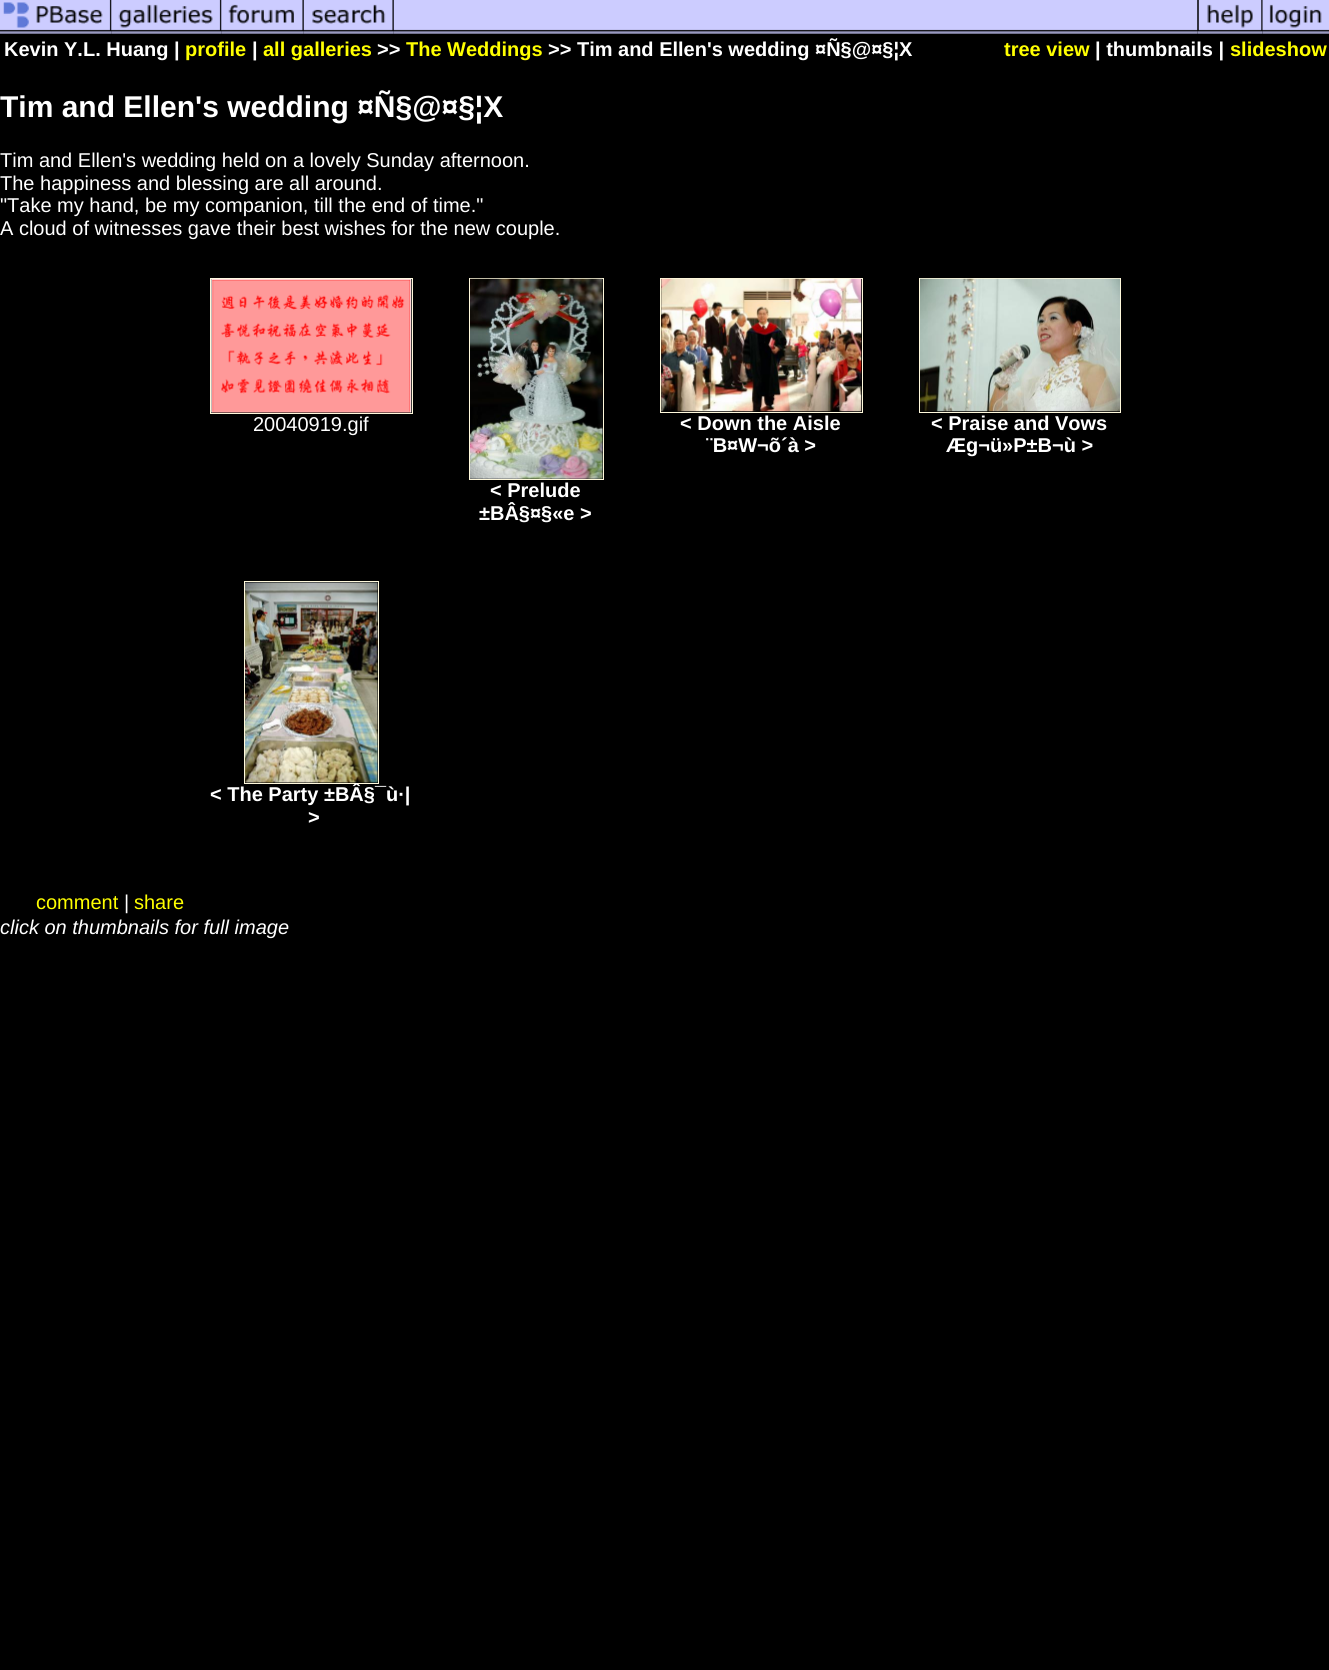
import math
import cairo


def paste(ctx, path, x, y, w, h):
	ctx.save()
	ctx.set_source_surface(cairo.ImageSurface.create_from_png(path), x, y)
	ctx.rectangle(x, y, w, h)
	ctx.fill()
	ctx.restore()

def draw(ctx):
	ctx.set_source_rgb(0, 0, 0)
	ctx.paint()
	paste(ctx, 'media/1.png', 0, 0, 112, 34)
	paste(ctx, 'media/2.png', 111, 0, 111, 34)
	paste(ctx, 'media/3.png', 221, 0, 83, 34)
	paste(ctx, 'media/4.png', 303, 0, 91, 34)
	paste(ctx, 'media/5.png', 393, 0, 805, 34)
	paste(ctx, 'media/6.png', 1197, 0, 66, 34)
	paste(ctx, 'media/7.png', 1262, 0, 67, 34)
	ctx.select_font_face('Liberation Sans', cairo.FONT_SLANT_NORMAL, cairo.FONT_WEIGHT_BOLD)
	ctx.set_font_size(20)
	ctx.set_source_rgb(1, 1, 1)
	ctx.move_to(4, 56)
	ctx.show_text('Kevin Y.L. Huang |')
	ctx.set_source_rgb(1, 1, 0)
	ctx.move_to(185, 56)
	ctx.show_text('profile')
	ctx.set_source_rgb(1, 1, 1)
	ctx.move_to(252, 56)
	ctx.show_text('|')
	ctx.set_source_rgb(1, 1, 0)
	ctx.move_to(263, 56)
	ctx.show_text('all galleries')
	ctx.set_source_rgb(1, 1, 1)
	ctx.move_to(377, 56)
	ctx.show_text('>>')
	ctx.set_source_rgb(1, 1, 0)
	ctx.move_to(406, 56)
	ctx.show_text('The Weddings')
	ctx.set_source_rgb(1, 1, 1)
	ctx.move_to(548, 56)
	ctx.show_text('>> Tim and Ellen\'s wedding ¤Ñ§@¤§¦X')
	ctx.set_source_rgb(1, 1, 0)
	ctx.move_to(1004, 56)
	ctx.show_text('tree view')
	ctx.set_source_rgb(1, 1, 1)
	ctx.move_to(1095, 56)
	ctx.show_text('| thumbnails |')
	ctx.set_source_rgb(1, 1, 0)
	ctx.move_to(1230, 56)
	ctx.show_text('slideshow')
	ctx.set_font_size(30)
	ctx.set_source_rgb(1, 1, 1)
	ctx.move_to(0, 117)
	ctx.show_text('Tim and Ellen\'s wedding ¤Ñ§@¤§¦X')
	ctx.select_font_face('Liberation Sans')
	ctx.set_font_size(20)
	for x, y, s in [
		(0, 167, 'Tim and Ellen\'s wedding held on a lovely Sunday afternoon.'),
		(0, 190, 'The happiness and blessing are all around.'),
		(0, 212, '"Take my hand, be my companion, till the end of time."'),
		(0, 235, 'A cloud of witnesses gave their best wishes for the new couple.'),
	]:
		ctx.move_to(x, y)
		ctx.show_text(s)
	ctx.rectangle(210.5, 278.5, 202, 135)
	ctx.set_source_rgb(1, 0.973, 0.863)
	ctx.set_line_width(1)
	ctx.stroke()
	paste(ctx, 'media/8.png', 211, 278, 201, 135)
	ctx.set_source_rgb(1, 1, 1)
	ctx.move_to(253, 431)
	ctx.show_text('20040919.gif')
	ctx.rectangle(660.5, 278.5, 202, 134)
	ctx.set_source_rgb(1, 0.973, 0.863)
	ctx.stroke()
	paste(ctx, 'media/9.png', 661, 278, 201, 134)
	ctx.select_font_face('Liberation Sans', cairo.FONT_SLANT_NORMAL, cairo.FONT_WEIGHT_BOLD)
	ctx.set_source_rgb(1, 1, 1)
	ctx.move_to(680, 430)
	ctx.show_text('< Down the Aisle')
	ctx.move_to(706, 452)
	ctx.show_text('¨B¤W¬õ´à >')
	ctx.rectangle(919.5, 278.5, 201, 134)
	ctx.set_source_rgb(1, 0.973, 0.863)
	ctx.stroke()
	paste(ctx, 'media/10.png', 920, 278, 200, 134)
	ctx.set_source_rgb(1, 1, 1)
	ctx.move_to(931, 430)
	ctx.show_text('< Praise and Vows')
	ctx.move_to(946, 452)
	ctx.show_text('Æg¬ü»P±B¬ù >')
	ctx.rectangle(469.5, 278.5, 134, 201)
	ctx.set_source_rgb(1, 0.973, 0.863)
	ctx.stroke()
	paste(ctx, 'media/11.png', 470, 278, 133, 201)
	ctx.set_source_rgb(1, 1, 1)
	ctx.move_to(490, 497)
	ctx.show_text('< Prelude')
	ctx.move_to(479, 520)
	ctx.show_text('±BÂ§¤§«e >')
	ctx.rectangle(244.5, 581.5, 134, 202)
	ctx.set_source_rgb(1, 0.973, 0.863)
	ctx.stroke()
	paste(ctx, 'media/12.png', 245, 582, 133, 201)
	ctx.set_source_rgb(1, 1, 1)
	ctx.move_to(210, 801)
	ctx.show_text('< The Party ±BÂ§¯ù·|')
	ctx.move_to(308, 824)
	ctx.show_text('>')
	ctx.select_font_face('Liberation Sans')
	ctx.set_source_rgb(1, 1, 0)
	ctx.move_to(36, 909)
	ctx.show_text('comment')
	ctx.set_source_rgb(1, 1, 1)
	ctx.move_to(124, 909)
	ctx.show_text('|')
	ctx.set_source_rgb(1, 1, 0)
	ctx.move_to(134, 909)
	ctx.show_text('share')
	ctx.select_font_face('Liberation Sans', cairo.FONT_SLANT_ITALIC)
	ctx.set_source_rgb(1, 1, 1)
	ctx.move_to(0, 934)
	ctx.show_text('click on thumbnails for full image')


surface = cairo.ImageSurface(cairo.FORMAT_RGB24, 1329, 1670)
ctx = cairo.Context(surface)
options = cairo.FontOptions()
options.set_hint_metrics(cairo.HINT_METRICS_OFF)
options.set_hint_style(cairo.HINT_STYLE_NONE)
ctx.set_font_options(options)
ctx.set_miter_limit(4)
draw(ctx)
surface.write_to_png('image.png')
